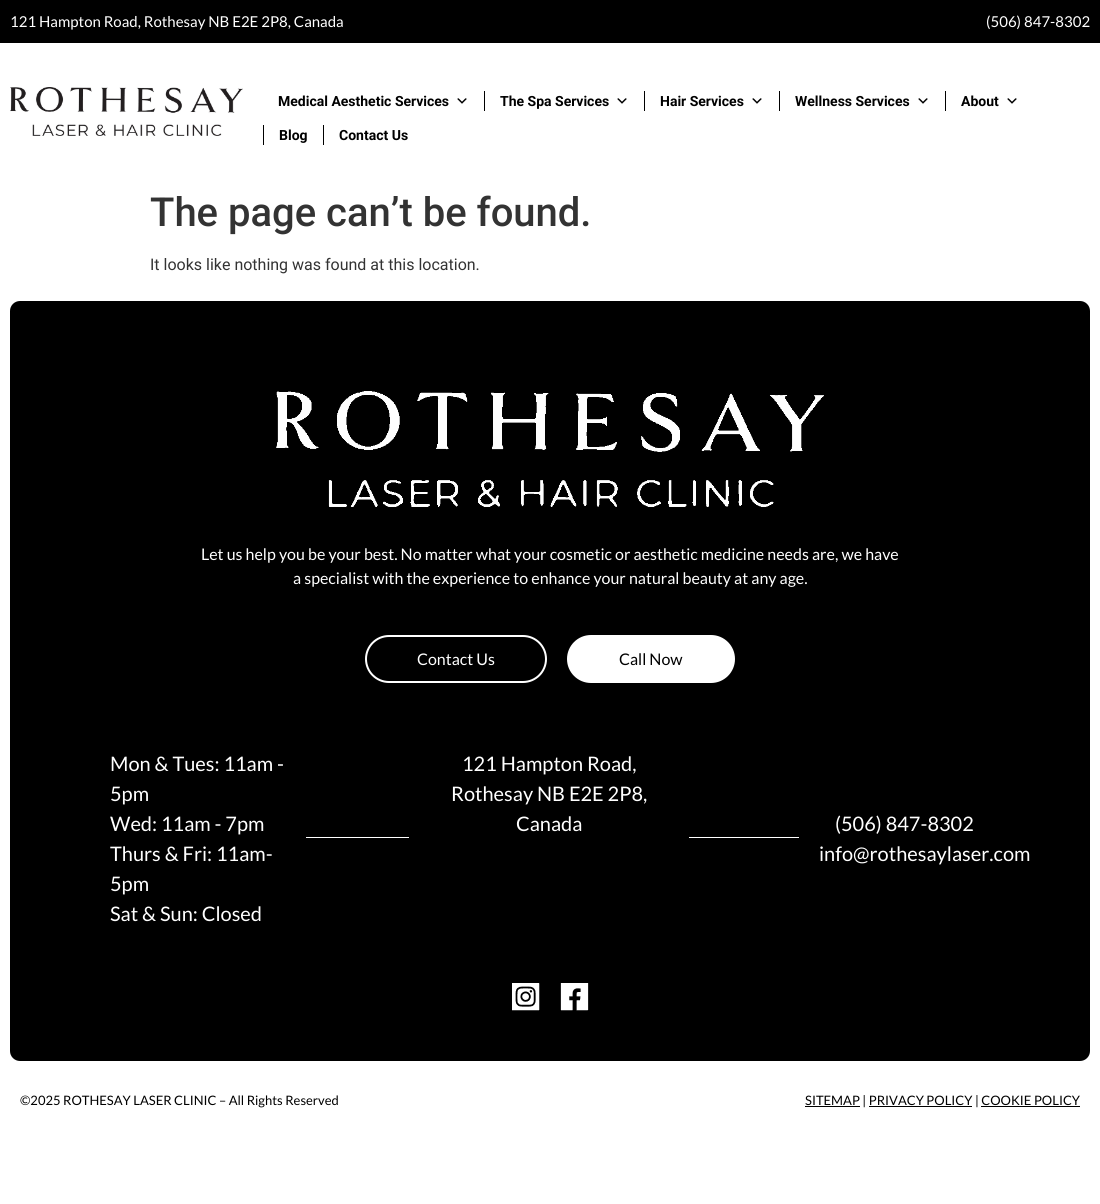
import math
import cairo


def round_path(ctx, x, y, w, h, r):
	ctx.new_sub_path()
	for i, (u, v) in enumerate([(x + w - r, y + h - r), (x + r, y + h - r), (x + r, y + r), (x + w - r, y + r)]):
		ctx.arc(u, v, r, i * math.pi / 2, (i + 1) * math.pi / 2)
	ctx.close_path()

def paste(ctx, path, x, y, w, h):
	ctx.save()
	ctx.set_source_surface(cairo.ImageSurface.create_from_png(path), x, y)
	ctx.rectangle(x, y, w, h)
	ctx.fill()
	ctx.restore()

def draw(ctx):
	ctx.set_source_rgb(1, 1, 1)
	ctx.paint()
	ctx.set_source_rgb(0, 0, 0)
	ctx.rectangle(0, 0, 1100, 43)
	ctx.fill()
	ctx.select_font_face('Lato')
	ctx.set_font_size(15)
	ctx.set_source_rgb(1, 1, 1)
	ctx.move_to(10, 27)
	ctx.show_text('121 Hampton Road, Rothesay NB E2E 2P8, Canada')
	ctx.move_to(986, 27)
	ctx.show_text('(506) 847-8302')
	paste(ctx, 'media/1.png', 10, 87, 233, 49)
	ctx.select_font_face('Roboto', cairo.FONT_SLANT_NORMAL, cairo.FONT_WEIGHT_BOLD)
	ctx.set_font_size(14)
	ctx.set_source_rgb(0, 0, 0)
	ctx.move_to(278, 106)
	ctx.show_text('Medical Aesthetic Services')
	paste(ctx, 'media/2.png', 457, 98, 10, 6)
	ctx.rectangle(484, 91, 1, 20)
	ctx.fill()
	ctx.move_to(500, 106)
	ctx.show_text('The Spa Services')
	paste(ctx, 'media/2.png', 617, 98, 10, 6)
	ctx.rectangle(644, 91, 1, 20)
	ctx.fill()
	ctx.move_to(660, 106)
	ctx.show_text('Hair Services')
	paste(ctx, 'media/2.png', 752, 98, 10, 6)
	ctx.rectangle(779, 91, 1, 20)
	ctx.fill()
	ctx.move_to(795, 106)
	ctx.show_text('Wellness Services')
	paste(ctx, 'media/2.png', 918, 98, 10, 6)
	ctx.rectangle(945, 91, 1, 20)
	ctx.fill()
	ctx.move_to(961, 106)
	ctx.show_text('About')
	paste(ctx, 'media/2.png', 1007, 98, 10, 6)
	ctx.rectangle(263, 125, 1, 20)
	ctx.fill()
	ctx.move_to(279, 140)
	ctx.show_text('Blog')
	ctx.rectangle(323, 125, 1, 20)
	ctx.fill()
	ctx.move_to(339, 140)
	ctx.show_text('Contact Us')
	ctx.select_font_face('Roboto Medium')
	ctx.set_font_size(40)
	ctx.set_source_rgb(0.2, 0.2, 0.2)
	ctx.move_to(150, 226)
	ctx.show_text('The page can’t be found.')
	ctx.select_font_face('Roboto')
	ctx.set_font_size(16)
	ctx.move_to(150, 270)
	ctx.show_text('It looks like nothing was found at this location.')
	ctx.set_source_rgb(0, 0, 0)
	round_path(ctx, 10, 301, 1080, 760, 10)
	ctx.fill()
	paste(ctx, 'media/3.png', 276, 391, 548, 116)
	ctx.select_font_face('Lato')
	ctx.set_source_rgb(1, 1, 1)
	ctx.move_to(201, 560)
	ctx.show_text('Let us help you be your best. No matter what your cosmetic or aesthetic medicine needs are, we have')
	ctx.move_to(293, 584)
	ctx.show_text('a specialist with the experience to enhance your natural beauty at any age.')
	round_path(ctx, 366, 636, 180, 46, 23)
	ctx.stroke()
	ctx.move_to(417, 665)
	ctx.show_text('Contact Us')
	round_path(ctx, 568, 636, 166, 46, 23)
	ctx.fill_preserve()
	ctx.stroke()
	ctx.set_source_rgb(0, 0, 0)
	ctx.move_to(619, 665)
	ctx.show_text('Call Now')
	ctx.set_font_size(20)
	ctx.set_source_rgb(1, 1, 1)
	for x, y, s in [
		(110, 771, 'Mon & Tues: 11am -'),
		(110, 801, '5pm'),
		(110, 831, 'Wed: 11am - 7pm'),
		(110, 861, 'Thurs & Fri: 11am-'),
		(110, 891, '5pm'),
		(110, 921, 'Sat & Sun: Closed'),
		(462, 771, '121 Hampton Road,'),
		(451, 801, 'Rothesay NB E2E 2P8,'),
		(516, 831, 'Canada'),
	]:
		ctx.move_to(x, y)
		ctx.show_text(s)
	ctx.rectangle(306, 837, 103, 1)
	ctx.fill()
	ctx.rectangle(689, 837, 110, 1)
	ctx.fill()
	ctx.move_to(835, 831)
	ctx.show_text('(506) 847-8302')
	ctx.move_to(819, 861)
	ctx.show_text('info@rothesaylaser.com')
	paste(ctx, 'media/4.png', 512, 983, 28, 28)
	paste(ctx, 'media/5.png', 560, 983, 29, 28)
	ctx.set_font_size(13)
	ctx.set_source_rgb(0, 0, 0)
	ctx.move_to(20, 1105)
	ctx.show_text('©2025 ROTHESAY LASER CLINIC – All Rights Reserved')
	ctx.rectangle(805, 1106, 55, 1)
	ctx.fill()
	ctx.move_to(805, 1105)
	ctx.show_text('SITEMAP | PRIVACY POLICY | COOKIE POLICY')
	ctx.rectangle(869, 1106, 103, 1)
	ctx.fill()
	ctx.rectangle(981, 1106, 99, 1)
	ctx.fill()


surface = cairo.ImageSurface(cairo.FORMAT_RGB24, 1100, 1204)
ctx = cairo.Context(surface)
options = cairo.FontOptions()
options.set_hint_metrics(cairo.HINT_METRICS_OFF)
options.set_hint_style(cairo.HINT_STYLE_NONE)
ctx.set_font_options(options)
ctx.set_miter_limit(4)
draw(ctx)
surface.write_to_png('image.png')
